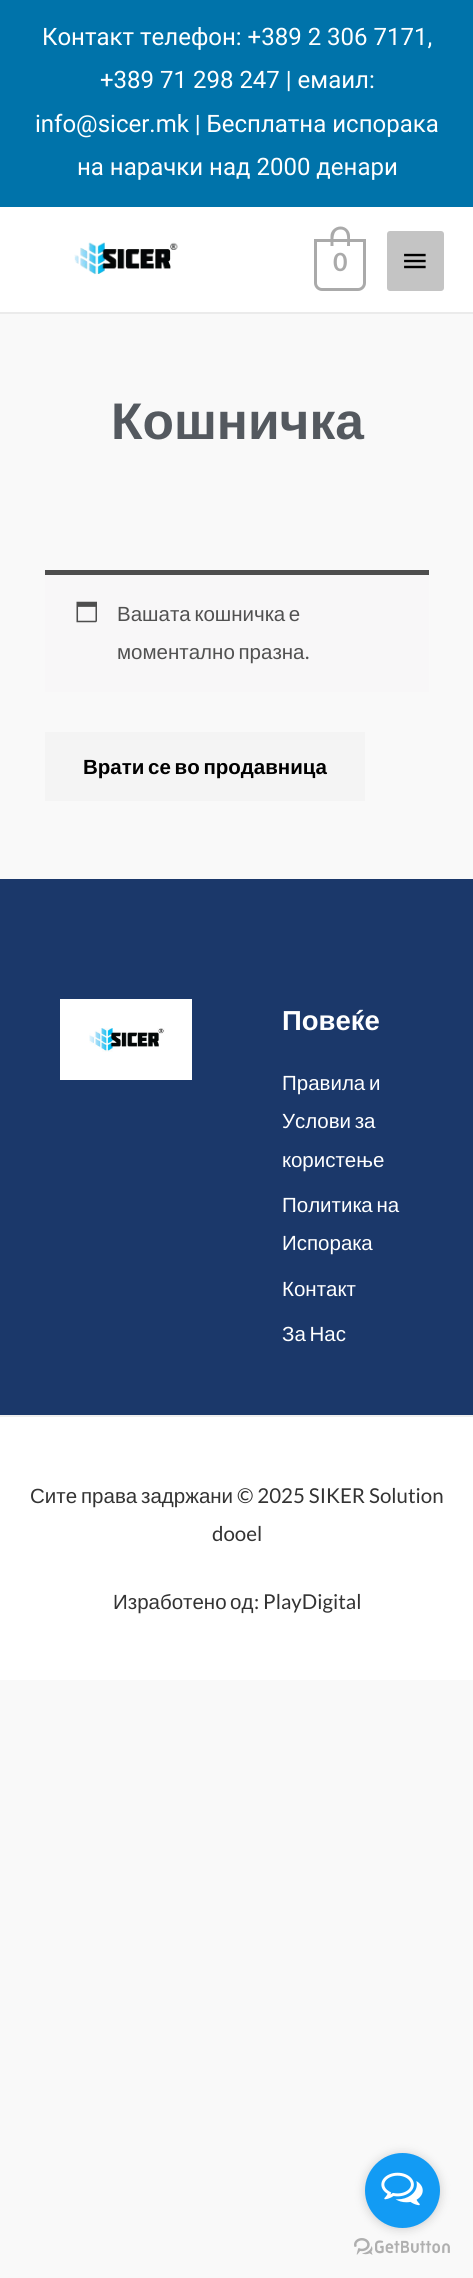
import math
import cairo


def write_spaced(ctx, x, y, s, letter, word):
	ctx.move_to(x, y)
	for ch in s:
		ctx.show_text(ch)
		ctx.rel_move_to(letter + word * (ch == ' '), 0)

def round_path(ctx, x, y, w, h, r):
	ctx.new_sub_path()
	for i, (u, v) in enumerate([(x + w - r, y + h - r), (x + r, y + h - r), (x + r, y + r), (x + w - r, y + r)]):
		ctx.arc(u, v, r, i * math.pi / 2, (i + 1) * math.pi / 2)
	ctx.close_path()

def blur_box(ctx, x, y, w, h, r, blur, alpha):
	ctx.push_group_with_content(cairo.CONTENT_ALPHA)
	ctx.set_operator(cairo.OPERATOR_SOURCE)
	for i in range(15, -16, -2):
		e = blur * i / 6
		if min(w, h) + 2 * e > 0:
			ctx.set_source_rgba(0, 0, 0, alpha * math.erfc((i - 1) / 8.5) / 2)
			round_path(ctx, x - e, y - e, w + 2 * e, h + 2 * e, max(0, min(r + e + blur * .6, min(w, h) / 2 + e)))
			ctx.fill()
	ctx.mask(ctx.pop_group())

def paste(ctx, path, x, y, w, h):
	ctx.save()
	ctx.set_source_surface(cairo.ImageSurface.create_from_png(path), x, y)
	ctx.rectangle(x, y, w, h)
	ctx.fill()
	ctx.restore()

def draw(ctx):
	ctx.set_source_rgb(0.976, 0.976, 0.976)
	ctx.paint()
	ctx.set_source_rgb(0, 0.451, 0.667)
	ctx.rectangle(0, 0, 473, 207)
	ctx.fill()
	ctx.select_font_face('Roboto')
	ctx.set_font_size(24)
	ctx.set_source_rgb(1, 1, 1)
	for x, y, s in [
		(42, 45, 'Контакт телефон: +389 2 306 7171,'),
		(100, 88, '+389 71 298 247 | емаил:'),
		(35, 132, 'info@sicer.mk | Бесплатна испорака'),
		(77, 175, 'на нарачки над 2000 денари'),
	]:
		ctx.move_to(x, y)
		ctx.show_text(s)
	ctx.rectangle(0, 207, 473, 105)
	ctx.fill()
	ctx.set_source_rgb(0.918, 0.918, 0.918)
	ctx.rectangle(0, 312, 473, 2)
	ctx.fill()
	paste(ctx, 'media/1.png', 74, 242, 104, 33)
	ctx.new_path()
	ctx.move_to(315.5, 240.5)
	ctx.line_to(364.5, 240.5)
	ctx.line_to(364.5, 283)
	ctx.curve_to(364.5, 286.5, 361.5, 289.5, 358, 289.5)
	ctx.line_to(322, 289.5)
	ctx.curve_to(318.5, 289.5, 315.5, 286.5, 315.5, 283)
	ctx.close_path()
	ctx.set_source_rgb(0.667, 0.667, 0.667)
	ctx.set_line_width(3)
	ctx.stroke()
	ctx.set_fill_rule(cairo.FILL_RULE_EVEN_ODD)
	ctx.new_path()
	ctx.move_to(340.5, 226.5)
	ctx.curve_to(346, 226.5, 350, 231, 350, 236)
	ctx.line_to(350, 246)
	ctx.line_to(330.5, 246)
	ctx.line_to(330.5, 236)
	ctx.curve_to(330.5, 231, 335, 226.5, 340.5, 226.5)
	ctx.close_path()
	ctx.move_to(340.5, 229.5)
	ctx.curve_to(349, 229.5, 347, 240.5, 347, 246)
	ctx.line_to(333.5, 246)
	ctx.curve_to(333.5, 240.5, 332, 229.5, 340.5, 229.5)
	ctx.close_path()
	ctx.fill()
	ctx.select_font_face('Lato', cairo.FONT_SLANT_NORMAL, cairo.FONT_WEIGHT_BOLD)
	ctx.set_font_size(25)
	ctx.move_to(333, 271)
	ctx.show_text('0')
	ctx.set_source_rgb(0.769, 0.769, 0.769)
	round_path(ctx, 387, 231, 57, 60, 3)
	ctx.fill()
	paste(ctx, 'media/2.png', 404, 253, 22, 16)
	ctx.select_font_face('Liberation Sans', cairo.FONT_SLANT_NORMAL, cairo.FONT_WEIGHT_BOLD)
	ctx.set_font_size(51.5)
	ctx.set_source_rgb(0.329, 0.349, 0.373)
	ctx.move_to(111, 439)
	ctx.show_text('Кошничка')
	ctx.set_source_rgb(0.969, 0.965, 0.969)
	ctx.rectangle(45, 575, 384, 117)
	ctx.fill()
	ctx.set_source_rgb(0.306, 0.306, 0.306)
	ctx.rectangle(45, 570, 384, 5)
	ctx.fill()
	paste(ctx, 'media/3.png', 76, 601, 21, 22)
	ctx.select_font_face('Liberation Sans')
	ctx.set_font_size(20.5)
	ctx.set_source_rgb(0.318, 0.318, 0.318)
	write_spaced(ctx, 117, 621, 'Вашата кошничка е', 0, -2)
	write_spaced(ctx, 117, 659, 'моментално празна', 0, -2)
	ctx.select_font_face('Lato')
	ctx.move_to(305, 659)
	ctx.show_text('.')
	ctx.set_source_rgb(0.957, 0.957, 0.957)
	ctx.rectangle(45, 732, 320, 69)
	ctx.fill()
	ctx.select_font_face('Liberation Sans', cairo.FONT_SLANT_NORMAL, cairo.FONT_WEIGHT_BOLD)
	ctx.set_source_rgb(0, 0, 0)
	write_spaced(ctx, 83, 774, 'Врати се во продавница', 0, -2)
	ctx.set_source_rgb(0.106, 0.22, 0.416)
	ctx.rectangle(0, 879, 473, 536)
	ctx.fill()
	paste(ctx, 'media/4.png', 60, 999, 132, 81)
	ctx.set_font_size(27.5)
	ctx.set_source_rgb(1, 1, 1)
	ctx.move_to(282, 1030)
	ctx.show_text('Повеќе')
	ctx.select_font_face('Liberation Sans')
	ctx.set_font_size(20.5)
	write_spaced(ctx, 282, 1090, 'Правила и', 0, -2)
	write_spaced(ctx, 282, 1128, 'Услови за', 0, -2)
	ctx.move_to(282, 1167)
	ctx.show_text('користење')
	write_spaced(ctx, 282, 1212, 'Политика на', 0, -2)
	ctx.move_to(282, 1250)
	ctx.show_text('Испорака')
	ctx.move_to(282, 1296)
	ctx.show_text('Контакт')
	write_spaced(ctx, 282, 1341, 'За Нас', 0, -2)
	ctx.rectangle(0, 1417, 473, 263)
	ctx.fill()
	ctx.set_source_rgb(0.933, 0.933, 0.933)
	ctx.rectangle(0, 1415, 473, 2)
	ctx.fill()
	ctx.set_source_rgb(0.2, 0.2, 0.2)
	for x, y, s in [
		(30, 1503, 'Сите'),
		(81, 1503, 'права'),
		(141, 1503, 'задржани'),
	]:
		ctx.move_to(x, y)
		ctx.show_text(s)
	ctx.select_font_face('Lato')
	ctx.move_to(237, 1503)
	ctx.show_text('© 2025 SIKER Solution')
	ctx.move_to(212, 1541)
	ctx.show_text('dooel')
	ctx.select_font_face('Liberation Sans')
	ctx.move_to(113, 1609)
	ctx.show_text('Изработено')
	ctx.move_to(230, 1609)
	ctx.show_text('од')
	ctx.select_font_face('Lato')
	ctx.move_to(254, 1609)
	ctx.show_text(': PlayDigital')
	paste(ctx, 'media/6.png', 354, 2238, 96, 17)
	ctx.set_source_rgb(0.533, 0.533, 0.533)
	blur_box(ctx, 365, 2154, 75, 75, 37.5, 5, 0.4)
	ctx.set_source_rgb(0.071, 0.608, 0.957)
	ctx.arc(402.5, 2190.5, 37.5, 0, 2 * math.pi)
	ctx.fill()
	paste(ctx, 'media/5.png', 381, 2172, 42, 34)


surface = cairo.ImageSurface(cairo.FORMAT_RGB24, 473, 2278)
ctx = cairo.Context(surface)
options = cairo.FontOptions()
options.set_hint_metrics(cairo.HINT_METRICS_OFF)
options.set_hint_style(cairo.HINT_STYLE_NONE)
ctx.set_font_options(options)
ctx.set_miter_limit(4)
draw(ctx)
surface.write_to_png('image.png')
